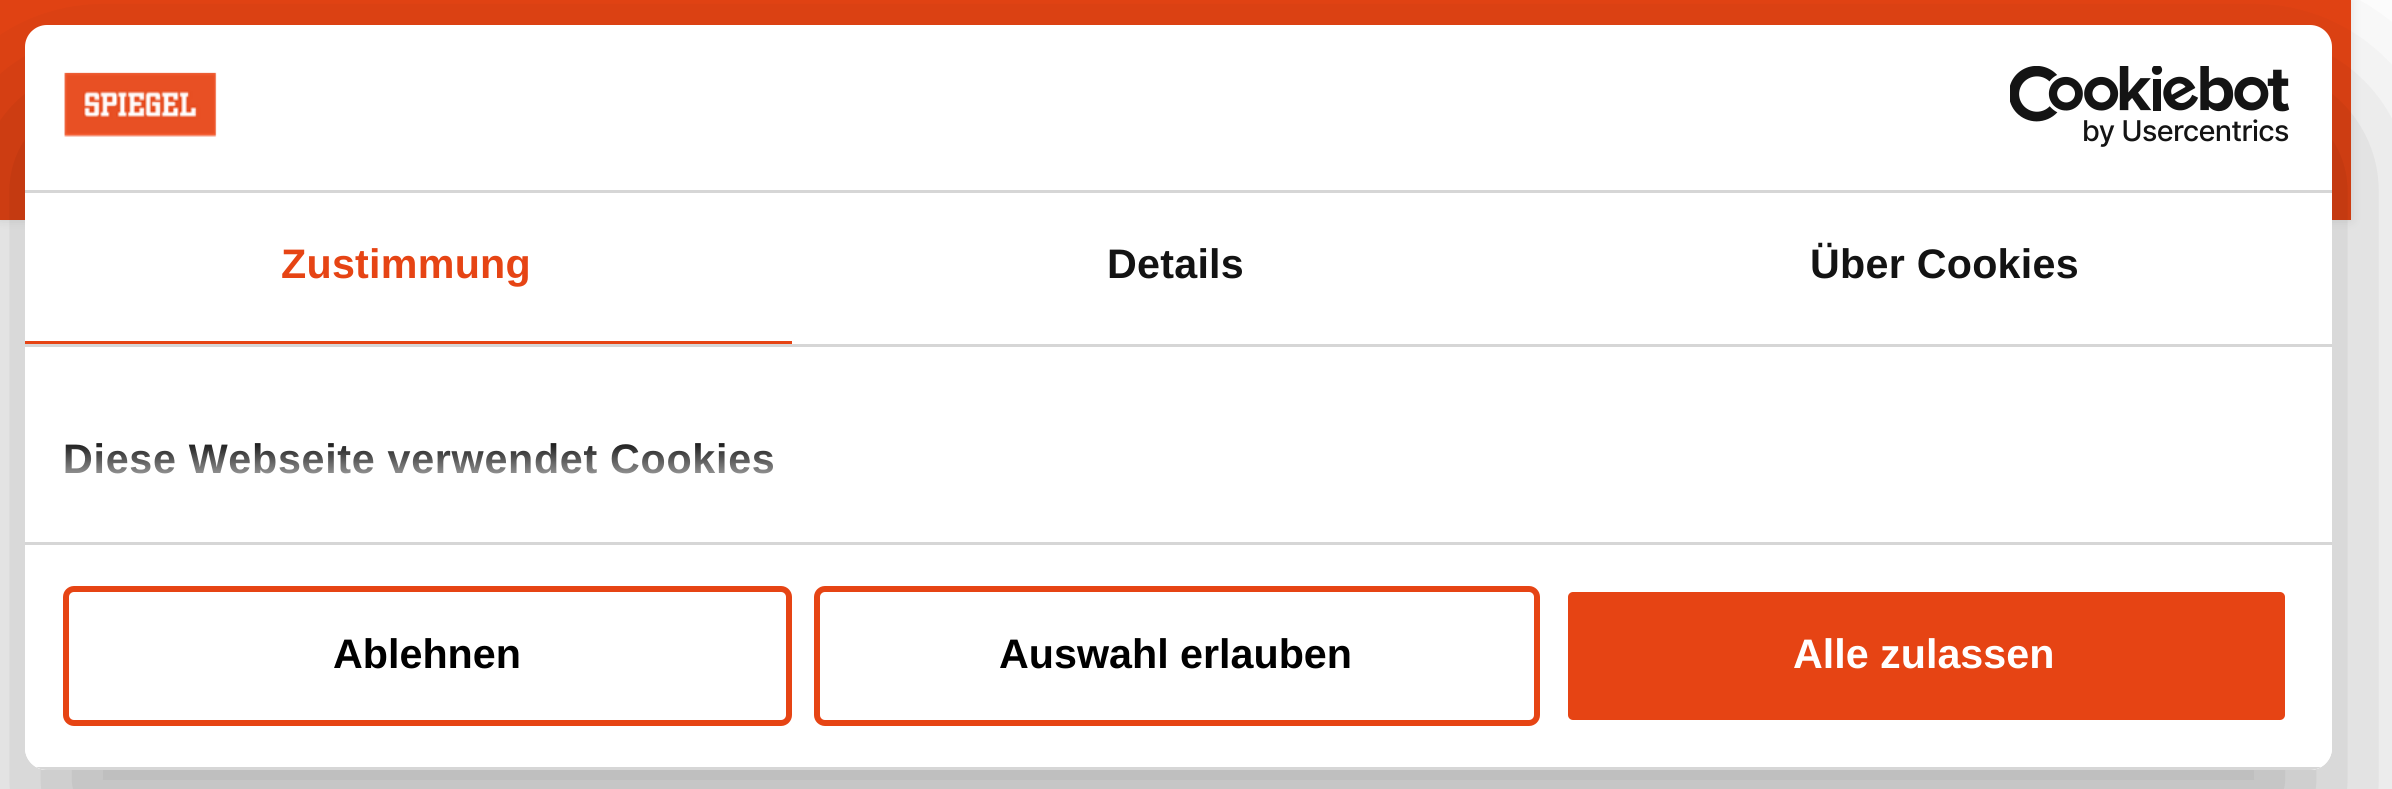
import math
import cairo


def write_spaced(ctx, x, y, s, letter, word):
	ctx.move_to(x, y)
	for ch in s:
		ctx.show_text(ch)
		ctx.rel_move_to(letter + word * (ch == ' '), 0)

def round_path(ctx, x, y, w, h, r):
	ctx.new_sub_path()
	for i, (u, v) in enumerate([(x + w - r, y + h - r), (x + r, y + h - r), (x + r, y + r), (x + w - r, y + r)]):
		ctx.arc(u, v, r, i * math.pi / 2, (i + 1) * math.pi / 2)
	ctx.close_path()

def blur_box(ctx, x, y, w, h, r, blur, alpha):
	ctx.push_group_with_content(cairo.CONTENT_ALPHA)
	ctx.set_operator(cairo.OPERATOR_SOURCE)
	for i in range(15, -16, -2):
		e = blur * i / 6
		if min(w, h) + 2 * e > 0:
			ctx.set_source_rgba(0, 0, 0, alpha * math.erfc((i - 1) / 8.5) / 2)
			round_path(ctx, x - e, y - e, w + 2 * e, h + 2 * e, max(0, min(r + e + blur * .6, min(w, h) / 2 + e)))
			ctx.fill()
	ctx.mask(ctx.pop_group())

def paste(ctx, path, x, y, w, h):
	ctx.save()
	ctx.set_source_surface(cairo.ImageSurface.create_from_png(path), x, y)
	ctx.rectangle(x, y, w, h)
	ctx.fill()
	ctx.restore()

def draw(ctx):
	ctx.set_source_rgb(1, 1, 1)
	ctx.paint()
	ctx.set_source_rgb(0, 0, 0)
	blur_box(ctx, 0, 0, 2351, 220, 0, 5.5, 0.1)
	ctx.set_source_rgb(0.902, 0.267, 0.082)
	ctx.rectangle(0, 0, 2351, 220)
	ctx.fill()
	ctx.save()
	ctx.set_fill_rule(cairo.FILL_RULE_EVEN_ODD)
	ctx.new_path()
	ctx.move_to(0, 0)
	ctx.line_to(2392, 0)
	ctx.line_to(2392, 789)
	ctx.line_to(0, 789)
	ctx.close_path()
	ctx.move_to(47, 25)
	ctx.line_to(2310, 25)
	ctx.curve_to(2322, 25, 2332, 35, 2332, 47)
	ctx.line_to(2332, 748)
	ctx.curve_to(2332, 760, 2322, 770, 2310, 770)
	ctx.line_to(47, 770)
	ctx.curve_to(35, 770, 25, 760, 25, 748)
	ctx.line_to(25, 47)
	ctx.curve_to(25, 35, 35, 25, 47, 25)
	ctx.close_path()
	ctx.clip()
	ctx.set_source_rgb(0, 0, 0)
	blur_box(ctx, 25, 113, 2307, 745, 22, 93.5, 0.3)
	ctx.restore()
	ctx.set_source_rgb(1, 1, 1)
	round_path(ctx, 25, 25, 2307, 745, 22)
	ctx.fill()
	ctx.set_source_rgb(0.839, 0.839, 0.839)
	ctx.rectangle(25, 190, 2307, 3)
	ctx.fill()
	paste(ctx, 'media/1.png', 64, 72, 153, 65)
	paste(ctx, 'media/2.png', 2010, 66, 280, 81)
	ctx.rectangle(25, 344, 2307, 3)
	ctx.fill()
	ctx.set_source_rgb(0.902, 0.267, 0.082)
	ctx.rectangle(25, 341, 767, 3)
	ctx.fill()
	ctx.select_font_face('Liberation Sans', cairo.FONT_SLANT_NORMAL, cairo.FONT_WEIGHT_BOLD)
	ctx.set_font_size(41.25)
	write_spaced(ctx, 281, 278, 'Zustimmung', 0.25, 0)
	ctx.set_source_rgb(0.078, 0.078, 0.078)
	write_spaced(ctx, 1107, 278, 'Details', 0.25, 0)
	write_spaced(ctx, 1810, 278, 'Über Cookies', 0.25, 0)
	ctx.set_source_rgb(0.839, 0.839, 0.839)
	ctx.rectangle(25, 542, 2307, 3)
	ctx.fill()
	ctx.set_source_rgb(0.078, 0.078, 0.078)
	write_spaced(ctx, 63, 473, 'Diese Webseite verwendet Cookies', 0.7, 0)
	gradient = cairo.LinearGradient(1159, 540, 1159, 441)
	gradient.add_color_stop_rgba(0, 1, 1, 1, 1)
	gradient.add_color_stop_rgba(0.5, 1, 1, 1, 0.8)
	gradient.add_color_stop_rgba(1, 1, 1, 1, 0)
	ctx.set_source(gradient)
	ctx.rectangle(66, 443, 707, 31)
	ctx.fill()
	ctx.save()
	round_path(ctx, 25, 25, 2307, 745, 22)
	ctx.clip()
	ctx.set_source_rgb(0.839, 0.839, 0.839)
	ctx.rectangle(36, 767, 2285, 3)
	ctx.fill()
	ctx.restore()
	round_path(ctx, 66, 589, 723, 134, 8)
	ctx.set_source_rgb(0.902, 0.267, 0.082)
	ctx.set_line_width(6)
	ctx.stroke()
	ctx.set_source_rgb(0, 0, 0)
	ctx.move_to(333, 668)
	ctx.show_text('Ablehnen')
	round_path(ctx, 817, 589, 720, 134, 8)
	ctx.set_source_rgb(0.902, 0.267, 0.082)
	ctx.stroke()
	ctx.set_source_rgb(0, 0, 0)
	ctx.move_to(999, 668)
	ctx.show_text('Auswahl erlauben')
	ctx.set_source_rgb(0.902, 0.267, 0.082)
	round_path(ctx, 1565, 589, 723, 134, 8)
	ctx.fill_preserve()
	ctx.set_source_rgb(1, 1, 1)
	ctx.stroke()
	ctx.move_to(1793, 668)
	ctx.show_text('Alle zulassen')


surface = cairo.ImageSurface(cairo.FORMAT_RGB24, 2392, 789)
ctx = cairo.Context(surface)
options = cairo.FontOptions()
options.set_hint_metrics(cairo.HINT_METRICS_OFF)
options.set_hint_style(cairo.HINT_STYLE_NONE)
ctx.set_font_options(options)
ctx.set_miter_limit(4)
draw(ctx)
surface.write_to_png('image.png')
